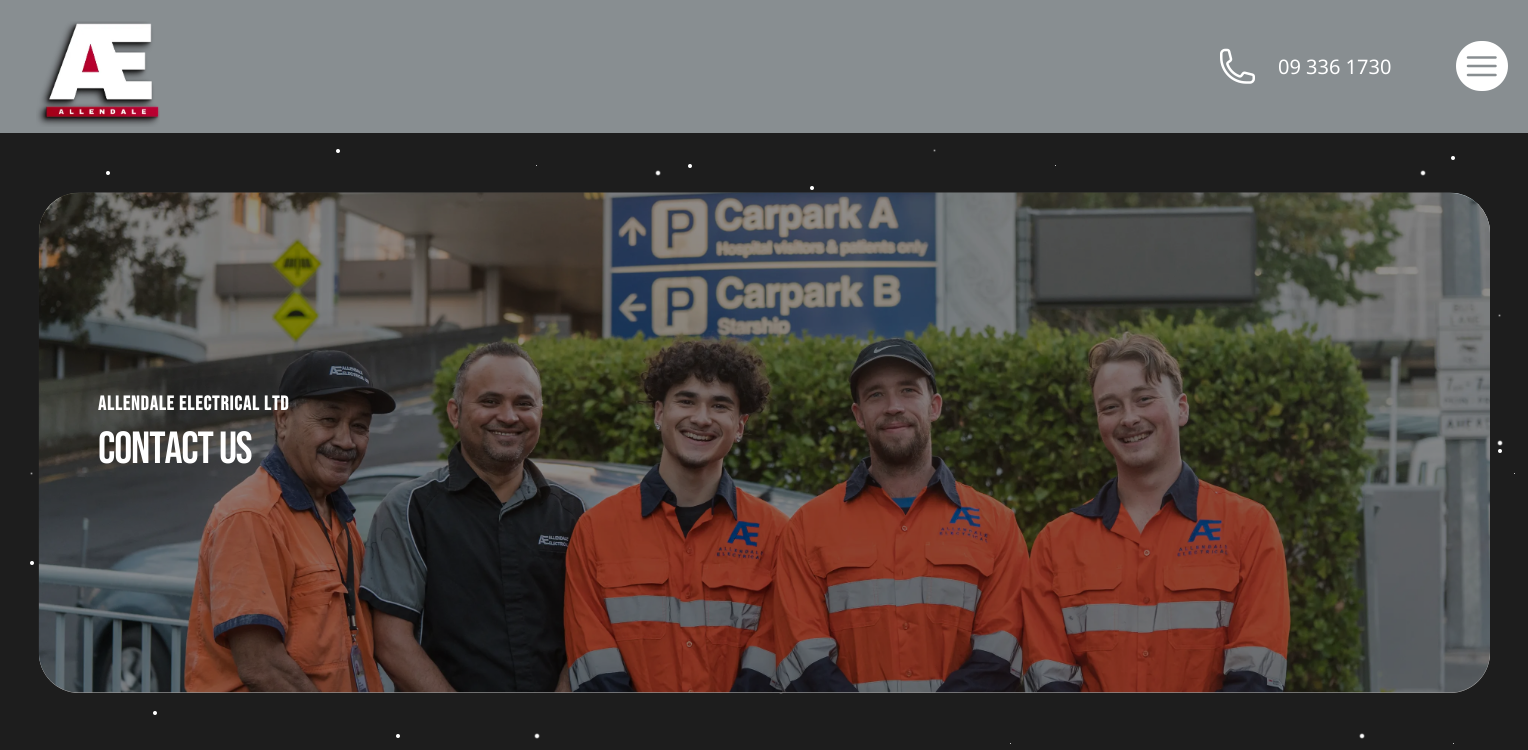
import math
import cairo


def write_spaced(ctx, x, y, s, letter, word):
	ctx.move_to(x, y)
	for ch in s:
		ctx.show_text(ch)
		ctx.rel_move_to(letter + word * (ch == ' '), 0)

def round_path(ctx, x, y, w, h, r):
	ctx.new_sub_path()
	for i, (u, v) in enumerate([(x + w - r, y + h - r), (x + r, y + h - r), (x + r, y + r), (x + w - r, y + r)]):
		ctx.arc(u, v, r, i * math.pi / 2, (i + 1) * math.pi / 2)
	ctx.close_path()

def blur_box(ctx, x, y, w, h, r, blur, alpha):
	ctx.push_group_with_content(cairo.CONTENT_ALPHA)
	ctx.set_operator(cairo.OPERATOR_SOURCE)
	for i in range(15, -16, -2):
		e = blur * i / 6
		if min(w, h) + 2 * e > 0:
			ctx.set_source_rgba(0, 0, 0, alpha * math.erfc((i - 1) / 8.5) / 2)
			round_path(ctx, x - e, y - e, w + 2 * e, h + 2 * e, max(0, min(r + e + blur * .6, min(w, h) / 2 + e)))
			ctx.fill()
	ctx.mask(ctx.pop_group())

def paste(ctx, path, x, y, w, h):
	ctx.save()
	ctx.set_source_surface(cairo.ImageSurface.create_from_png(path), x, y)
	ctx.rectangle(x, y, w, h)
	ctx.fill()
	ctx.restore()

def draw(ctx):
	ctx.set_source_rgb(0.114, 0.114, 0.114)
	ctx.paint()
	ctx.set_source_rgb(0.533, 0.557, 0.569)
	ctx.rectangle(0, 0, 1528, 133)
	ctx.fill()
	paste(ctx, 'media/1.png', 36, 21, 124, 106)
	paste(ctx, 'media/2.png', 1220, 48, 35, 36)
	ctx.select_font_face('Noto Sans')
	ctx.set_font_size(20)
	ctx.set_source_rgb(1, 1, 1)
	ctx.move_to(1278, 74)
	ctx.show_text('09 336 1730')
	round_path(ctx, 1456, 41, 52, 50, 25)
	ctx.fill()
	ctx.new_path()
	ctx.move_to(1468, 57.5)
	ctx.line_to(1495.5, 57.5)
	ctx.move_to(1468, 66)
	ctx.line_to(1495.5, 66)
	ctx.move_to(1468, 75)
	ctx.line_to(1495.5, 75)
	ctx.set_source_rgb(0.533, 0.557, 0.569)
	ctx.set_line_width(2.5)
	ctx.set_line_cap(cairo.LINE_CAP_ROUND)
	ctx.set_line_join(cairo.LINE_JOIN_ROUND)
	ctx.stroke()
	ctx.set_source_rgb(1, 1, 1)
	blur_box(ctx, 31, 473, 1, 1, 0.5, 0.5, 1)
	blur_box(ctx, 1498, 441, 4, 4, 2, 0.5, 1)
	ctx.set_source_rgb(1, 1, 1)
	ctx.arc(1010.5, 743.5, 0.5, 0, 2 * math.pi)
	ctx.fill()
	ctx.arc(812, 188, 2, 0, 2 * math.pi)
	ctx.fill()
	ctx.arc(32, 563, 2, 0, 2 * math.pi)
	ctx.fill()
	ctx.set_source_rgb(1, 1, 1)
	blur_box(ctx, 535, 734, 4, 4, 2, 0.5, 1)
	ctx.set_source_rgb(1, 1, 1)
	ctx.arc(1055.5, 165.5, 0.5, 0, 2 * math.pi)
	ctx.fill()
	ctx.arc(1500, 451, 2, 0, 2 * math.pi)
	ctx.fill()
	ctx.arc(1514.5, 473.5, 0.5, 0, 2 * math.pi)
	ctx.fill()
	ctx.arc(690, 166, 2, 0, 2 * math.pi)
	ctx.fill()
	ctx.arc(536.5, 165.5, 0.5, 0, 2 * math.pi)
	ctx.fill()
	ctx.arc(398, 736, 2, 0, 2 * math.pi)
	ctx.fill()
	ctx.set_source_rgb(1, 1, 1)
	blur_box(ctx, 656, 171, 4, 4, 2, 0.5, 1)
	ctx.set_source_rgb(1, 1, 1)
	ctx.arc(1453, 158, 2, 0, 2 * math.pi)
	ctx.fill()
	ctx.set_source_rgb(1, 1, 1)
	blur_box(ctx, 934, 150, 1, 1, 0.5, 0.5, 1)
	ctx.set_source_rgb(1, 1, 1)
	ctx.arc(155, 713, 2, 0, 2 * math.pi)
	ctx.fill()
	ctx.set_source_rgb(1, 1, 1)
	blur_box(ctx, 1360, 734, 4, 4, 2, 0.5, 1)
	blur_box(ctx, 1421, 171, 4, 4, 2, 0.5, 1)
	ctx.set_source_rgb(1, 1, 1)
	ctx.arc(1453.5, 743.5, 0.5, 0, 2 * math.pi)
	ctx.fill()
	ctx.set_source_rgb(1, 1, 1)
	blur_box(ctx, 1499, 315, 1, 1, 0.5, 0.5, 1)
	blur_box(ctx, 779, 689, 4, 4, 2, 0.5, 1)
	ctx.set_source_rgb(1, 1, 1)
	ctx.arc(108, 173, 2, 0, 2 * math.pi)
	ctx.fill()
	ctx.arc(338, 151, 2, 0, 2 * math.pi)
	ctx.fill()
	round_path(ctx, 39, 193, 1451, 500, 40)
	ctx.fill()
	paste(ctx, 'media/3.png', 38, 192, 1452, 501)
	ctx.set_source_rgba(0, 0, 0, 0.44)
	round_path(ctx, 39, 193, 1451, 500, 40)
	ctx.fill()
	ctx.select_font_face('Bebas Neue', cairo.FONT_SLANT_NORMAL, cairo.FONT_WEIGHT_BOLD)
	ctx.set_source_rgb(1, 1, 1)
	write_spaced(ctx, 98, 410, 'ALLENDALE ELECTRICAL LTD', 1, 0)
	ctx.select_font_face('Bebas Neue')
	ctx.set_font_size(45)
	write_spaced(ctx, 98, 463, 'CONTACT US', -1.1, 0)


surface = cairo.ImageSurface(cairo.FORMAT_RGB24, 1528, 750)
ctx = cairo.Context(surface)
options = cairo.FontOptions()
options.set_hint_metrics(cairo.HINT_METRICS_OFF)
options.set_hint_style(cairo.HINT_STYLE_NONE)
ctx.set_font_options(options)
ctx.set_miter_limit(4)
draw(ctx)
surface.write_to_png('image.png')
